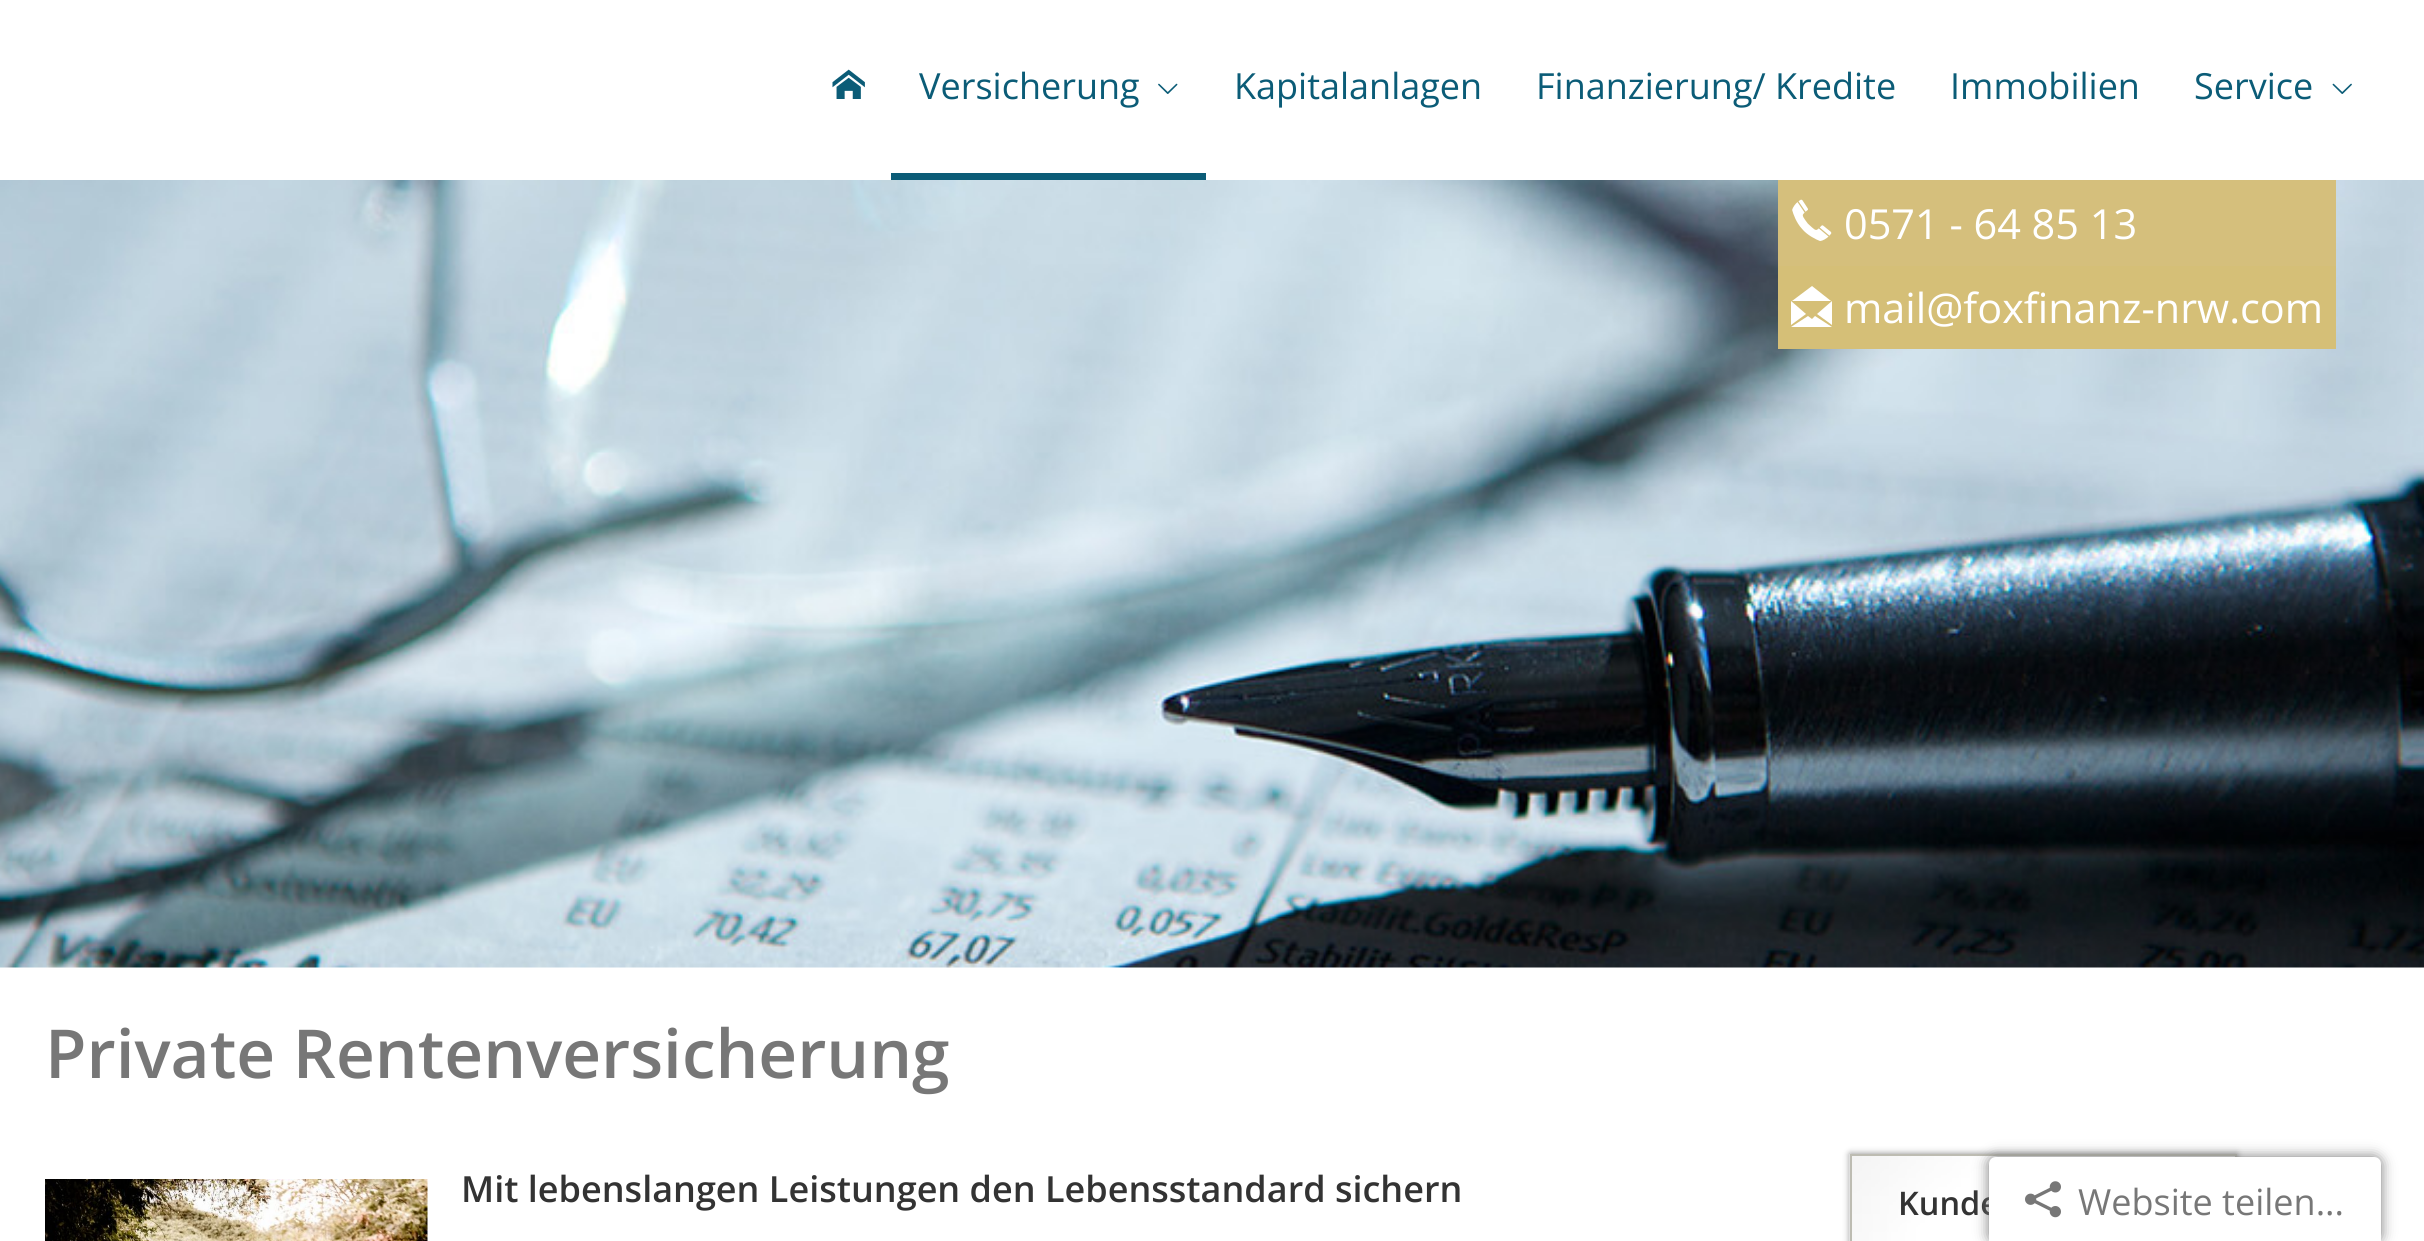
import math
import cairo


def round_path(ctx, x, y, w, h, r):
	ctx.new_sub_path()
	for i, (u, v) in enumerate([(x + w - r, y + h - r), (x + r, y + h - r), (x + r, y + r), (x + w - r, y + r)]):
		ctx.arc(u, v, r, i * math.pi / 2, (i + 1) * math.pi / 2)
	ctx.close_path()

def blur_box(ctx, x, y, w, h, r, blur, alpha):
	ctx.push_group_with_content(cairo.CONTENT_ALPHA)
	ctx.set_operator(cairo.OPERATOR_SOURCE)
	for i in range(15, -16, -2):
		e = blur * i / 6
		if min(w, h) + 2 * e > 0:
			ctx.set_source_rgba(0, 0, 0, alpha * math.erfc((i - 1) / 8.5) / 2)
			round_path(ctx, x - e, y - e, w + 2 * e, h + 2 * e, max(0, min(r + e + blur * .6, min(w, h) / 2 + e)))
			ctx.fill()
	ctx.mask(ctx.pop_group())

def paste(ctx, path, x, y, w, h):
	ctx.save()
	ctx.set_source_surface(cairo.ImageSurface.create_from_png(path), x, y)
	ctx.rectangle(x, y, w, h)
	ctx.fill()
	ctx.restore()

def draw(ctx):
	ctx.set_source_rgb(1, 1, 1)
	ctx.paint()
	paste(ctx, 'media/1.png', 832, 69, 33, 30)
	ctx.set_source_rgb(0.043, 0.361, 0.467)
	ctx.rectangle(891, 173, 315, 7)
	ctx.fill()
	ctx.select_font_face('Open Sans')
	ctx.set_font_size(36)
	ctx.move_to(919, 99)
	ctx.show_text('Versicherung')
	paste(ctx, 'media/2.png', 1158, 83, 20, 11)
	for x, y, s in [
		(1234, 99, 'Kapitalanlagen'),
		(1536, 99, 'Finanzierung/ Kredite'),
		(1950, 99, 'Immobilien'),
		(2194, 99, 'Service'),
	]:
		ctx.move_to(x, y)
		ctx.show_text(s)
	paste(ctx, 'media/3.png', 2332, 83, 20, 11)
	paste(ctx, 'media/4.png', 0, 180, 2424, 788)
	ctx.set_source_rgb(0.835, 0.749, 0.486)
	ctx.rectangle(1778, 180, 558, 86)
	ctx.fill()
	paste(ctx, 'media/5.png', 1792, 199, 40, 42)
	ctx.set_font_size(41.4)
	ctx.set_source_rgb(1, 1, 1)
	ctx.move_to(1844, 239)
	ctx.show_text('0571 - 64 85 13')
	ctx.set_source_rgb(0.835, 0.749, 0.467)
	ctx.rectangle(1778, 266, 558, 83)
	ctx.fill()
	ctx.set_source_rgb(1, 1, 1)
	ctx.new_path()
	ctx.move_to(1817, 314)
	ctx.line_to(1832, 325)
	ctx.line_to(1832, 301)
	ctx.close_path()
	ctx.move_to(1791, 301)
	ctx.line_to(1791, 325)
	ctx.line_to(1806, 314)
	ctx.close_path()
	ctx.move_to(1812, 319)
	ctx.line_to(1808, 316)
	ctx.line_to(1791, 327)
	ctx.line_to(1832, 327)
	ctx.line_to(1815, 316)
	ctx.close_path()
	ctx.move_to(1792, 301)
	ctx.line_to(1831, 301)
	ctx.line_to(1812, 286)
	ctx.close_path()
	ctx.fill()
	ctx.move_to(1844, 323)
	ctx.show_text('mail@foxfinanz-nrw.com')
	ctx.select_font_face('Open Sans SemiBold')
	ctx.set_font_size(67.5)
	ctx.set_source_rgb(0.467, 0.467, 0.467)
	ctx.move_to(45, 1078)
	ctx.show_text('Private Rentenversicherung')
	paste(ctx, 'media/6.png', 45, 1179, 383, 62)
	ctx.set_font_size(36)
	ctx.set_source_rgb(0.2, 0.2, 0.2)
	ctx.move_to(461, 1202)
	ctx.show_text('Mit lebenslangen Leistungen den Lebensstandard sichern')
	ctx.set_source_rgb(0.533, 0.533, 0.533)
	blur_box(ctx, 1850, 1154, 387, 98, 0, 3.5, 1)
	paste(ctx, 'media/7.png', 1849, 1154, 386, 87)
	ctx.rectangle(1851, 1155, 385, 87)
	ctx.set_source_rgb(0.741, 0.737, 0.698)
	ctx.stroke()
	ctx.set_font_size(32.5)
	ctx.set_source_rgb(0.2, 0.2, 0.2)
	ctx.move_to(1898, 1215)
	ctx.show_text('Kunde')
	ctx.set_source_rgb(0.467, 0.467, 0.467)
	blur_box(ctx, 1989, 1157, 392, 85, 7, 7, 1)
	ctx.set_source_rgb(1, 1, 1)
	ctx.new_path()
	ctx.move_to(1996, 1157)
	ctx.line_to(2374, 1157)
	ctx.curve_to(2378, 1157, 2381, 1160, 2381, 1164)
	ctx.line_to(2381, 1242)
	ctx.line_to(1989, 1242)
	ctx.line_to(1989, 1164)
	ctx.curve_to(1989, 1160, 1992, 1157, 1996, 1157)
	ctx.close_path()
	ctx.fill()
	paste(ctx, 'media/8.png', 2025, 1181, 36, 37)
	ctx.select_font_face('Open Sans')
	ctx.set_font_size(36)
	ctx.set_source_rgb(0.467, 0.467, 0.467)
	ctx.move_to(2078, 1215)
	ctx.show_text('Website teilen...')


surface = cairo.ImageSurface(cairo.FORMAT_RGB24, 2424, 1241)
ctx = cairo.Context(surface)
options = cairo.FontOptions()
options.set_hint_metrics(cairo.HINT_METRICS_OFF)
options.set_hint_style(cairo.HINT_STYLE_NONE)
ctx.set_font_options(options)
ctx.set_miter_limit(4)
draw(ctx)
surface.write_to_png('image.png')
